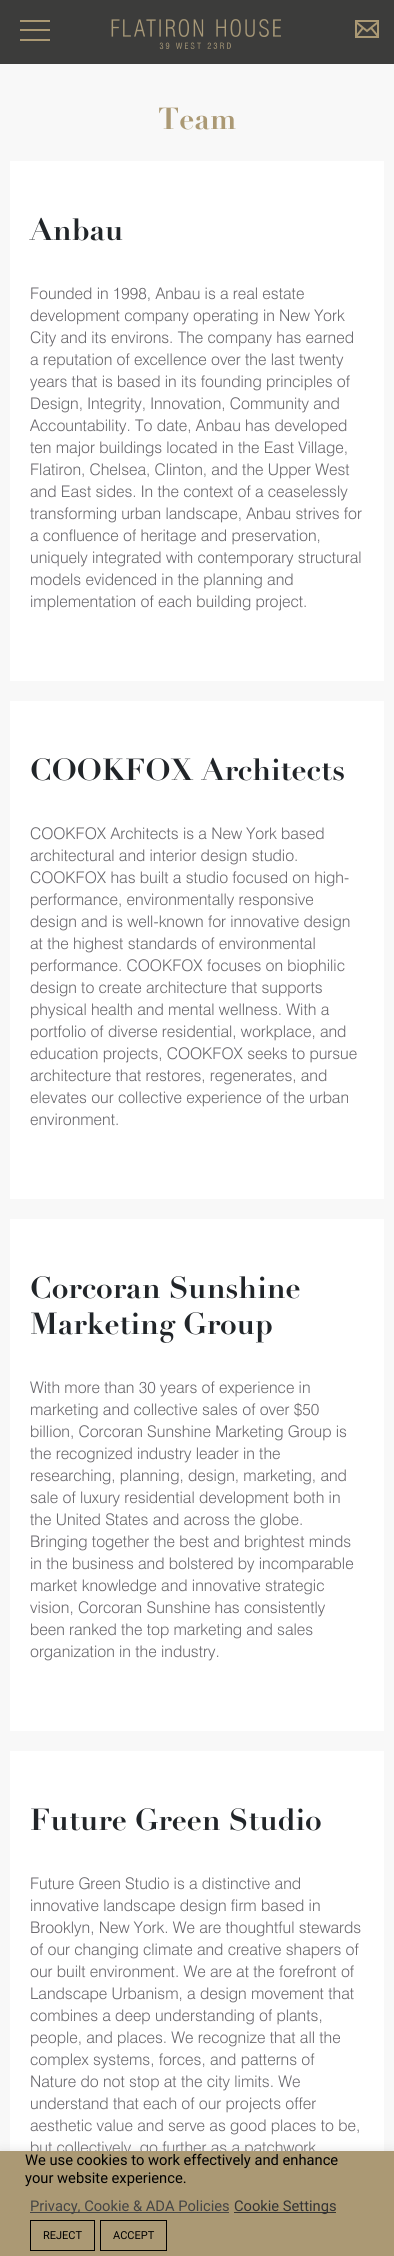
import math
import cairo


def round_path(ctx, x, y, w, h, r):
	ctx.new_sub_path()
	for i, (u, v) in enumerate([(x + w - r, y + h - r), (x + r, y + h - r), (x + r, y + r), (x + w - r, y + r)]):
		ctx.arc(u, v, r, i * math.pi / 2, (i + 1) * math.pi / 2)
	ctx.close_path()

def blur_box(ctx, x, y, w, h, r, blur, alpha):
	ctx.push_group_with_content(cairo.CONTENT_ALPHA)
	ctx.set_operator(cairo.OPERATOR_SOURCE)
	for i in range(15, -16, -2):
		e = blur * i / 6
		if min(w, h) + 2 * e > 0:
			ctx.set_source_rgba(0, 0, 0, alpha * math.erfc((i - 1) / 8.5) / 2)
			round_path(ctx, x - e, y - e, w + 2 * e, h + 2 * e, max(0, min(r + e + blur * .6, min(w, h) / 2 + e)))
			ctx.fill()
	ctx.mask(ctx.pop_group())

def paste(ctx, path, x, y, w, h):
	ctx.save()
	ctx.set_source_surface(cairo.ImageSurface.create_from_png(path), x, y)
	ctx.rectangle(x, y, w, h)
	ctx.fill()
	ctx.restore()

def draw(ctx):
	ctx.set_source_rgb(0.969, 0.969, 0.969)
	ctx.paint()
	ctx.set_source_rgb(0.235, 0.235, 0.231)
	ctx.rectangle(0, 0, 394, 64)
	ctx.fill()
	ctx.set_source_rgb(0.671, 0.6, 0.455)
	ctx.rectangle(20, 20, 30, 2)
	ctx.rectangle(20, 29, 30, 2)
	ctx.rectangle(20, 39, 30, 2)
	ctx.fill()
	paste(ctx, 'media/1.png', 111, 19, 170, 31)
	paste(ctx, 'media/2.png', 355, 20, 24, 18)
	ctx.select_font_face('Didot')
	ctx.set_font_size(30)
	ctx.move_to(158, 129)
	ctx.show_text('Team')
	ctx.set_source_rgb(1, 1, 1)
	ctx.rectangle(10, 161, 374, 520)
	ctx.fill()
	ctx.set_source_rgb(0.129, 0.145, 0.161)
	ctx.move_to(30, 240)
	ctx.show_text('Anbau')
	ctx.select_font_face('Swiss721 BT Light')
	ctx.set_font_size(16)
	ctx.set_source_rgb(0.412, 0.404, 0.424)
	for x, y, s in [
		(30, 299, 'Founded in 1998, Anbau is a real estate'),
		(30, 321, 'development company operating in New York'),
		(30, 343, 'City and its environs. The company has earned'),
		(30, 365, 'a reputation of excellence over the last twenty'),
		(30, 387, 'years that is based in its founding principles of'),
		(30, 409, 'Design, Integrity, Innovation, Community and'),
		(30, 431, 'Accountability. To date, Anbau has developed'),
		(30, 453, 'ten major buildings located in the East Village,'),
		(30, 475, 'Flatiron, Chelsea, Clinton, and the Upper West'),
		(30, 497, 'and East sides. In the context of a ceaselessly'),
		(30, 519, 'transforming urban landscape, Anbau strives for'),
		(30, 541, 'a confluence of heritage and preservation,'),
		(30, 563, 'uniquely integrated with contemporary structural'),
		(30, 585, 'models evidenced in the planning and'),
		(30, 607, 'implementation of each building project.'),
	]:
		ctx.move_to(x, y)
		ctx.show_text(s)
	ctx.set_source_rgb(1, 1, 1)
	ctx.rectangle(10, 701, 374, 498)
	ctx.fill()
	ctx.select_font_face('Didot')
	ctx.set_font_size(30)
	ctx.set_source_rgb(0.129, 0.145, 0.161)
	ctx.move_to(30, 780)
	ctx.show_text('COOKFOX Architects')
	ctx.select_font_face('Swiss721 BT Light')
	ctx.set_font_size(16)
	ctx.set_source_rgb(0.412, 0.404, 0.424)
	for x, y, s in [
		(30, 839, 'COOKFOX Architects is a New York based'),
		(30, 861, 'architectural and interior design studio.'),
		(30, 883, 'COOKFOX has built a studio focused on high-'),
		(30, 905, 'performance, environmentally responsive'),
		(30, 927, 'design and is well-known for innovative design'),
		(30, 949, 'at the highest standards of environmental'),
		(30, 971, 'performance. COOKFOX focuses on biophilic'),
		(30, 993, 'design to create architecture that supports'),
		(30, 1015, 'physical health and mental wellness. With a'),
		(30, 1037, 'portfolio of diverse residential, workplace, and'),
		(30, 1059, 'education projects, COOKFOX seeks to pursue'),
		(30, 1081, 'architecture that restores, regenerates, and'),
		(30, 1103, 'elevates our collective experience of the urban'),
		(30, 1125, 'environment.'),
	]:
		ctx.move_to(x, y)
		ctx.show_text(s)
	ctx.set_source_rgb(1, 1, 1)
	ctx.rectangle(10, 1219, 374, 512)
	ctx.fill()
	ctx.select_font_face('Didot')
	ctx.set_font_size(30)
	ctx.set_source_rgb(0.129, 0.145, 0.161)
	ctx.move_to(30, 1298)
	ctx.show_text('Corcoran Sunshine')
	ctx.move_to(30, 1334)
	ctx.show_text('Marketing Group')
	ctx.select_font_face('Swiss721 BT Light')
	ctx.set_font_size(16)
	ctx.set_source_rgb(0.412, 0.404, 0.424)
	for x, y, s in [
		(30, 1393, 'With more than 30 years of experience in'),
		(30, 1415, 'marketing and collective sales of over $50'),
		(30, 1437, 'billion, Corcoran Sunshine Marketing Group is'),
		(30, 1459, 'the recognized industry leader in the'),
		(30, 1481, 'researching, planning, design, marketing, and'),
		(30, 1503, 'sale of luxury residential development both in'),
		(30, 1525, 'the United States and across the globe.'),
		(30, 1547, 'Bringing together the best and brightest minds'),
		(30, 1569, 'in the business and bolstered by incomparable'),
		(30, 1591, 'market knowledge and innovative strategic'),
		(30, 1613, 'vision, Corcoran Sunshine has consistently'),
		(30, 1635, 'been ranked the top marketing and sales'),
		(30, 1657, 'organization in the industry.'),
	]:
		ctx.move_to(x, y)
		ctx.show_text(s)
	ctx.set_source_rgb(1, 1, 1)
	ctx.rectangle(10, 1751, 374, 400)
	ctx.fill()
	ctx.select_font_face('Didot')
	ctx.set_font_size(30)
	ctx.set_source_rgb(0.129, 0.145, 0.161)
	ctx.move_to(30, 1830)
	ctx.show_text('Future Green Studio')
	ctx.select_font_face('Swiss721 BT Light')
	ctx.set_font_size(16)
	ctx.set_source_rgb(0.412, 0.404, 0.424)
	for x, y, s in [
		(30, 1889, 'Future Green Studio is a distinctive and'),
		(30, 1911, 'innovative landscape design firm based in'),
		(30, 1933, 'Brooklyn, New York. We are thoughtful stewards'),
		(30, 1955, 'of our changing climate and creative shapers of'),
		(30, 1977, 'our built environment. We are at the forefront of'),
		(30, 1999, 'Landscape Urbanism, a design movement that'),
		(30, 2021, 'combines a deep understanding of plants,'),
		(30, 2043, 'people, and places. We recognize that all the'),
		(30, 2065, 'complex systems, forces, and patterns of'),
		(30, 2087, 'Nature do not stop at the city limits. We'),
		(30, 2109, 'understand that each of our projects offer'),
		(30, 2131, 'aesthetic value and serve as good places to be,'),
		(30, 2153, 'but collectively, go further as a patchwork'),
	]:
		ctx.move_to(x, y)
		ctx.show_text(s)
	ctx.set_source_rgb(0.675, 0.671, 0.671)
	blur_box(ctx, 0, 2150, 394, 105, 0, 5, 0.3)
	ctx.set_source_rgb(0.671, 0.6, 0.455)
	ctx.rectangle(0, 2151, 394, 105)
	ctx.fill()
	ctx.select_font_face('Roboto')
	ctx.set_font_size(14.7)
	ctx.set_source_rgb(0, 0, 0)
	ctx.move_to(25, 2165)
	ctx.show_text('We use cookies to work effectively and enhance')
	ctx.move_to(25, 2183)
	ctx.show_text('your website experience.')
	ctx.set_source_rgb(0.267, 0.267, 0.267)
	ctx.rectangle(30, 2212, 199, 1)
	ctx.fill()
	ctx.move_to(30, 2211)
	ctx.show_text('Privacy, Cookie & ADA Policies')
	ctx.set_source_rgb(0.2, 0.2, 0.2)
	ctx.rectangle(234, 2212, 102, 1)
	ctx.fill()
	ctx.move_to(234, 2211)
	ctx.show_text('Cookie Settings')
	ctx.rectangle(30.5, 2220.5, 64, 30)
	ctx.set_source_rgb(0, 0, 0)
	ctx.set_line_width(1)
	ctx.stroke()
	ctx.set_font_size(11)
	ctx.move_to(43, 2239)
	ctx.show_text('REJECT')
	ctx.rectangle(100.5, 2220.5, 66, 30)
	ctx.stroke()
	ctx.move_to(113, 2239)
	ctx.show_text('ACCEPT')


surface = cairo.ImageSurface(cairo.FORMAT_RGB24, 394, 2256)
ctx = cairo.Context(surface)
options = cairo.FontOptions()
options.set_hint_metrics(cairo.HINT_METRICS_OFF)
options.set_hint_style(cairo.HINT_STYLE_NONE)
ctx.set_font_options(options)
ctx.set_miter_limit(4)
draw(ctx)
surface.write_to_png('image.png')
